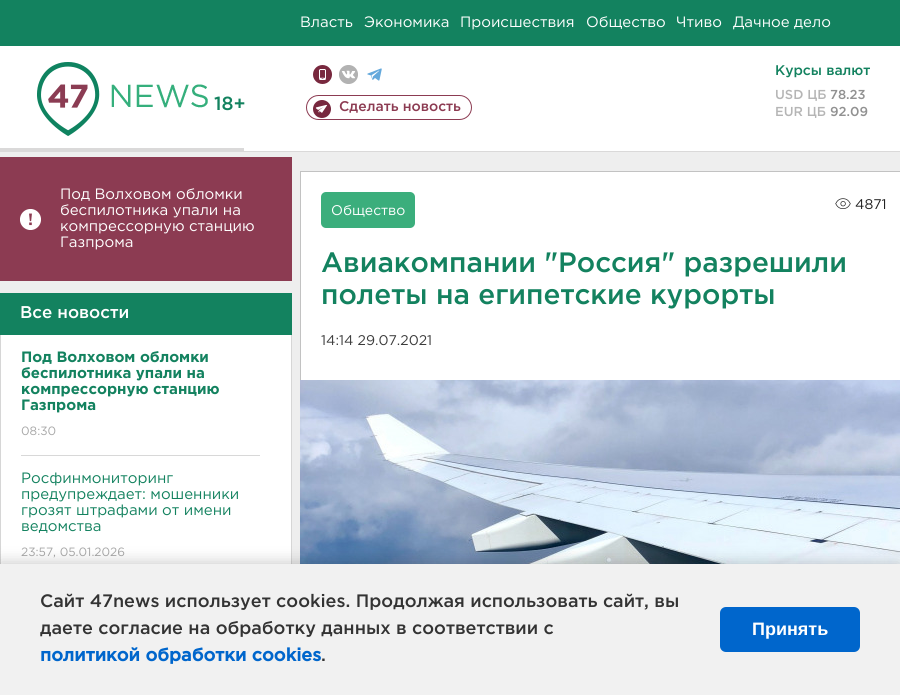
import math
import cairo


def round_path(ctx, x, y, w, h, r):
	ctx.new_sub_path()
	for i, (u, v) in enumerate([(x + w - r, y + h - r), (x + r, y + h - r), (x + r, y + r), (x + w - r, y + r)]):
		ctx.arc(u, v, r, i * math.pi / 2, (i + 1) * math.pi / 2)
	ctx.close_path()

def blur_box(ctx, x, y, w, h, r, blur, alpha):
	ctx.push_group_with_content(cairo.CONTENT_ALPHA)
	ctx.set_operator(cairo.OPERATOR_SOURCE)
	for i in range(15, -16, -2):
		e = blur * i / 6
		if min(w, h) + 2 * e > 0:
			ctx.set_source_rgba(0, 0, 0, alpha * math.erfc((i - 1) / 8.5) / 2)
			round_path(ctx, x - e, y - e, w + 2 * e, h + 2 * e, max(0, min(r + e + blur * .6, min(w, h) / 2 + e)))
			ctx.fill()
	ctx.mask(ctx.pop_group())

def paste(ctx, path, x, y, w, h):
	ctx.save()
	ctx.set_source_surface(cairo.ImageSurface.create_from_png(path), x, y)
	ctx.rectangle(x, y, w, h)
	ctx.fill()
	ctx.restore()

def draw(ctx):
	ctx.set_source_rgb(0.933, 0.933, 0.933)
	ctx.paint()
	ctx.set_source_rgb(0.075, 0.51, 0.373)
	ctx.rectangle(0, 0, 900, 46)
	ctx.fill()
	ctx.select_font_face('Gotham')
	ctx.set_font_size(15)
	ctx.set_source_rgb(1, 1, 1)
	for x, y, s in [
		(300, 27, 'Власть'),
		(364, 27, 'Экономика'),
		(460, 27, 'Происшествия'),
		(586, 27, 'Общество'),
		(676, 27, 'Чтиво'),
		(733, 27, 'Дачное дело'),
	]:
		ctx.move_to(x, y)
		ctx.show_text(s)
	ctx.rectangle(0, 46, 900, 105)
	ctx.fill()
	ctx.set_source_rgb(0.855, 0.851, 0.851)
	ctx.rectangle(0, 151, 900, 1)
	ctx.rectangle(0, 148, 244, 3)
	ctx.fill()
	paste(ctx, 'media/1.png', 37, 62, 171, 74)
	ctx.select_font_face('Gotham Medium')
	ctx.set_font_size(14)
	ctx.set_source_rgb(0.075, 0.51, 0.373)
	ctx.move_to(775, 75)
	ctx.show_text('Курсы валют')
	ctx.set_font_size(13)
	ctx.set_source_rgb(0.71, 0.71, 0.71)
	ctx.move_to(775, 99)
	ctx.show_text('USD ЦБ')
	ctx.set_source_rgb(0.569, 0.569, 0.569)
	ctx.move_to(830, 99)
	ctx.show_text('78.23')
	ctx.set_source_rgb(0.71, 0.71, 0.71)
	ctx.move_to(775, 116)
	ctx.show_text('EUR ЦБ')
	ctx.set_source_rgb(0.569, 0.569, 0.569)
	ctx.move_to(830, 116)
	ctx.show_text('92.09')
	ctx.set_font_size(19)
	ctx.set_source_rgb(0.075, 0.51, 0.373)
	ctx.move_to(214, 110)
	ctx.show_text('18+')
	paste(ctx, 'media/2.png', 313, 65, 19, 19)
	paste(ctx, 'media/3.png', 339, 65, 19, 19)
	paste(ctx, 'media/4.png', 367, 68, 15, 13)
	paste(ctx, 'media/5.png', 313, 100, 18, 18)
	round_path(ctx, 306.5, 95.5, 165, 24, 12)
	ctx.set_source_rgb(0.549, 0.231, 0.322)
	ctx.set_line_width(1)
	ctx.stroke()
	ctx.set_font_size(14)
	ctx.move_to(339, 111)
	ctx.show_text('Сделать новость')
	ctx.rectangle(0, 157, 292, 124)
	ctx.fill()
	paste(ctx, 'media/6.png', 20, 209, 21, 21)
	ctx.select_font_face('Gotham')
	ctx.set_font_size(15)
	ctx.set_source_rgb(1, 1, 1)
	for x, y, s in [
		(60, 199, 'Под Волховом обломки'),
		(60, 215, 'беспилотника упали на'),
		(60, 231, 'компрессорную станцию'),
		(60, 247, 'Газпрома'),
	]:
		ctx.move_to(x, y)
		ctx.show_text(s)
	ctx.set_source_rgb(0.075, 0.51, 0.373)
	ctx.rectangle(0, 293, 292, 42)
	ctx.fill()
	ctx.select_font_face('Gotham Medium')
	ctx.set_font_size(17)
	ctx.set_source_rgb(1, 1, 1)
	ctx.move_to(20, 318)
	ctx.show_text('Все новости')
	ctx.rectangle(1, 335, 290, 229)
	ctx.fill()
	ctx.set_source_rgb(0.839, 0.839, 0.839)
	ctx.rectangle(291, 335, 1, 229)
	ctx.rectangle(0, 335, 1, 229)
	ctx.fill()
	ctx.set_source_rgb(0.847, 0.847, 0.847)
	ctx.rectangle(21, 455, 239, 1)
	ctx.fill()
	ctx.select_font_face('Gotham', cairo.FONT_SLANT_NORMAL, cairo.FONT_WEIGHT_BOLD)
	ctx.set_font_size(15)
	ctx.set_source_rgb(0.075, 0.51, 0.373)
	for x, y, s in [
		(21, 362, 'Под Волховом обломки'),
		(21, 378, 'беспилотника упали на'),
		(21, 394, 'компрессорную станцию'),
		(21, 410, 'Газпрома'),
	]:
		ctx.move_to(x, y)
		ctx.show_text(s)
	ctx.select_font_face('Gotham')
	ctx.set_font_size(12)
	ctx.set_source_rgb(0.655, 0.655, 0.655)
	ctx.move_to(21, 435)
	ctx.show_text('08:30')
	ctx.set_font_size(15)
	ctx.set_source_rgb(0.075, 0.51, 0.373)
	for x, y, s in [
		(21, 483, 'Росфинмониторинг'),
		(21, 499, 'предупреждает: мошенники'),
		(21, 515, 'грозят штрафами от имени'),
		(21, 531, 'ведомства'),
	]:
		ctx.move_to(x, y)
		ctx.show_text(s)
	ctx.set_font_size(12)
	ctx.set_source_rgb(0.655, 0.655, 0.655)
	ctx.move_to(21, 556)
	ctx.show_text('23:57, 05.01.2026')
	ctx.set_source_rgb(1, 1, 1)
	ctx.rectangle(301, 172, 599, 208)
	ctx.fill()
	ctx.rectangle(300.5, 171.5, 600, 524)
	ctx.set_source_rgb(0.761, 0.761, 0.761)
	ctx.stroke()
	ctx.set_source_rgb(0.231, 0.682, 0.486)
	round_path(ctx, 321, 192, 94, 36, 5)
	ctx.fill()
	ctx.set_font_size(14)
	ctx.set_source_rgb(1, 1, 1)
	ctx.move_to(331, 215)
	ctx.show_text('Общество')
	paste(ctx, 'media/7.png', 835, 198, 16, 11)
	ctx.set_source_rgb(0.133, 0.133, 0.133)
	ctx.move_to(855, 209)
	ctx.show_text('4871')
	ctx.select_font_face('Gotham Medium')
	ctx.set_font_size(28)
	ctx.set_source_rgb(0.075, 0.51, 0.373)
	ctx.move_to(321, 272)
	ctx.show_text('Авиакомпании "Россия" разрешили')
	ctx.move_to(321, 304)
	ctx.show_text('полеты на египетские курорты')
	ctx.select_font_face('Gotham')
	ctx.set_font_size(14)
	ctx.set_source_rgb(0.235, 0.235, 0.235)
	ctx.move_to(321, 345)
	ctx.show_text('14:14 29.07.2021')
	paste(ctx, 'media/8.png', 300, 380, 600, 184)
	ctx.set_source_rgb(0, 0, 0)
	blur_box(ctx, 0, 562, 900, 131, 0, 7.5, 0.2)
	ctx.set_source_rgb(0.945, 0.945, 0.945)
	ctx.rectangle(0, 564, 900, 131)
	ctx.fill()
	ctx.select_font_face('Gotham Medium')
	ctx.set_font_size(18)
	ctx.set_source_rgb(0.2, 0.2, 0.2)
	ctx.move_to(40, 607)
	ctx.show_text('Сайт 47news использует cookies. Продолжая использовать сайт, вы')
	ctx.move_to(40, 634)
	ctx.show_text('даете согласие на обработку данных в соответствии с')
	ctx.select_font_face('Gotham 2', cairo.FONT_SLANT_NORMAL, cairo.FONT_WEIGHT_BOLD)
	ctx.set_source_rgb(0, 0.4, 0.8)
	ctx.move_to(40, 661)
	ctx.show_text('политикой обработки cookies')
	ctx.select_font_face('Gotham Medium')
	ctx.set_source_rgb(0.2, 0.2, 0.2)
	ctx.move_to(321, 661)
	ctx.show_text('.')
	ctx.set_source_rgb(0, 0.4, 0.8)
	round_path(ctx, 720, 607, 140, 45, 6)
	ctx.fill()
	ctx.select_font_face('Liberation Sans', cairo.FONT_SLANT_NORMAL, cairo.FONT_WEIGHT_BOLD)
	ctx.set_source_rgb(1, 1, 1)
	ctx.move_to(752, 635)
	ctx.show_text('Принять')


surface = cairo.ImageSurface(cairo.FORMAT_RGB24, 900, 695)
ctx = cairo.Context(surface)
options = cairo.FontOptions()
options.set_hint_metrics(cairo.HINT_METRICS_OFF)
options.set_hint_style(cairo.HINT_STYLE_NONE)
ctx.set_font_options(options)
ctx.set_miter_limit(4)
draw(ctx)
surface.write_to_png('image.png')
